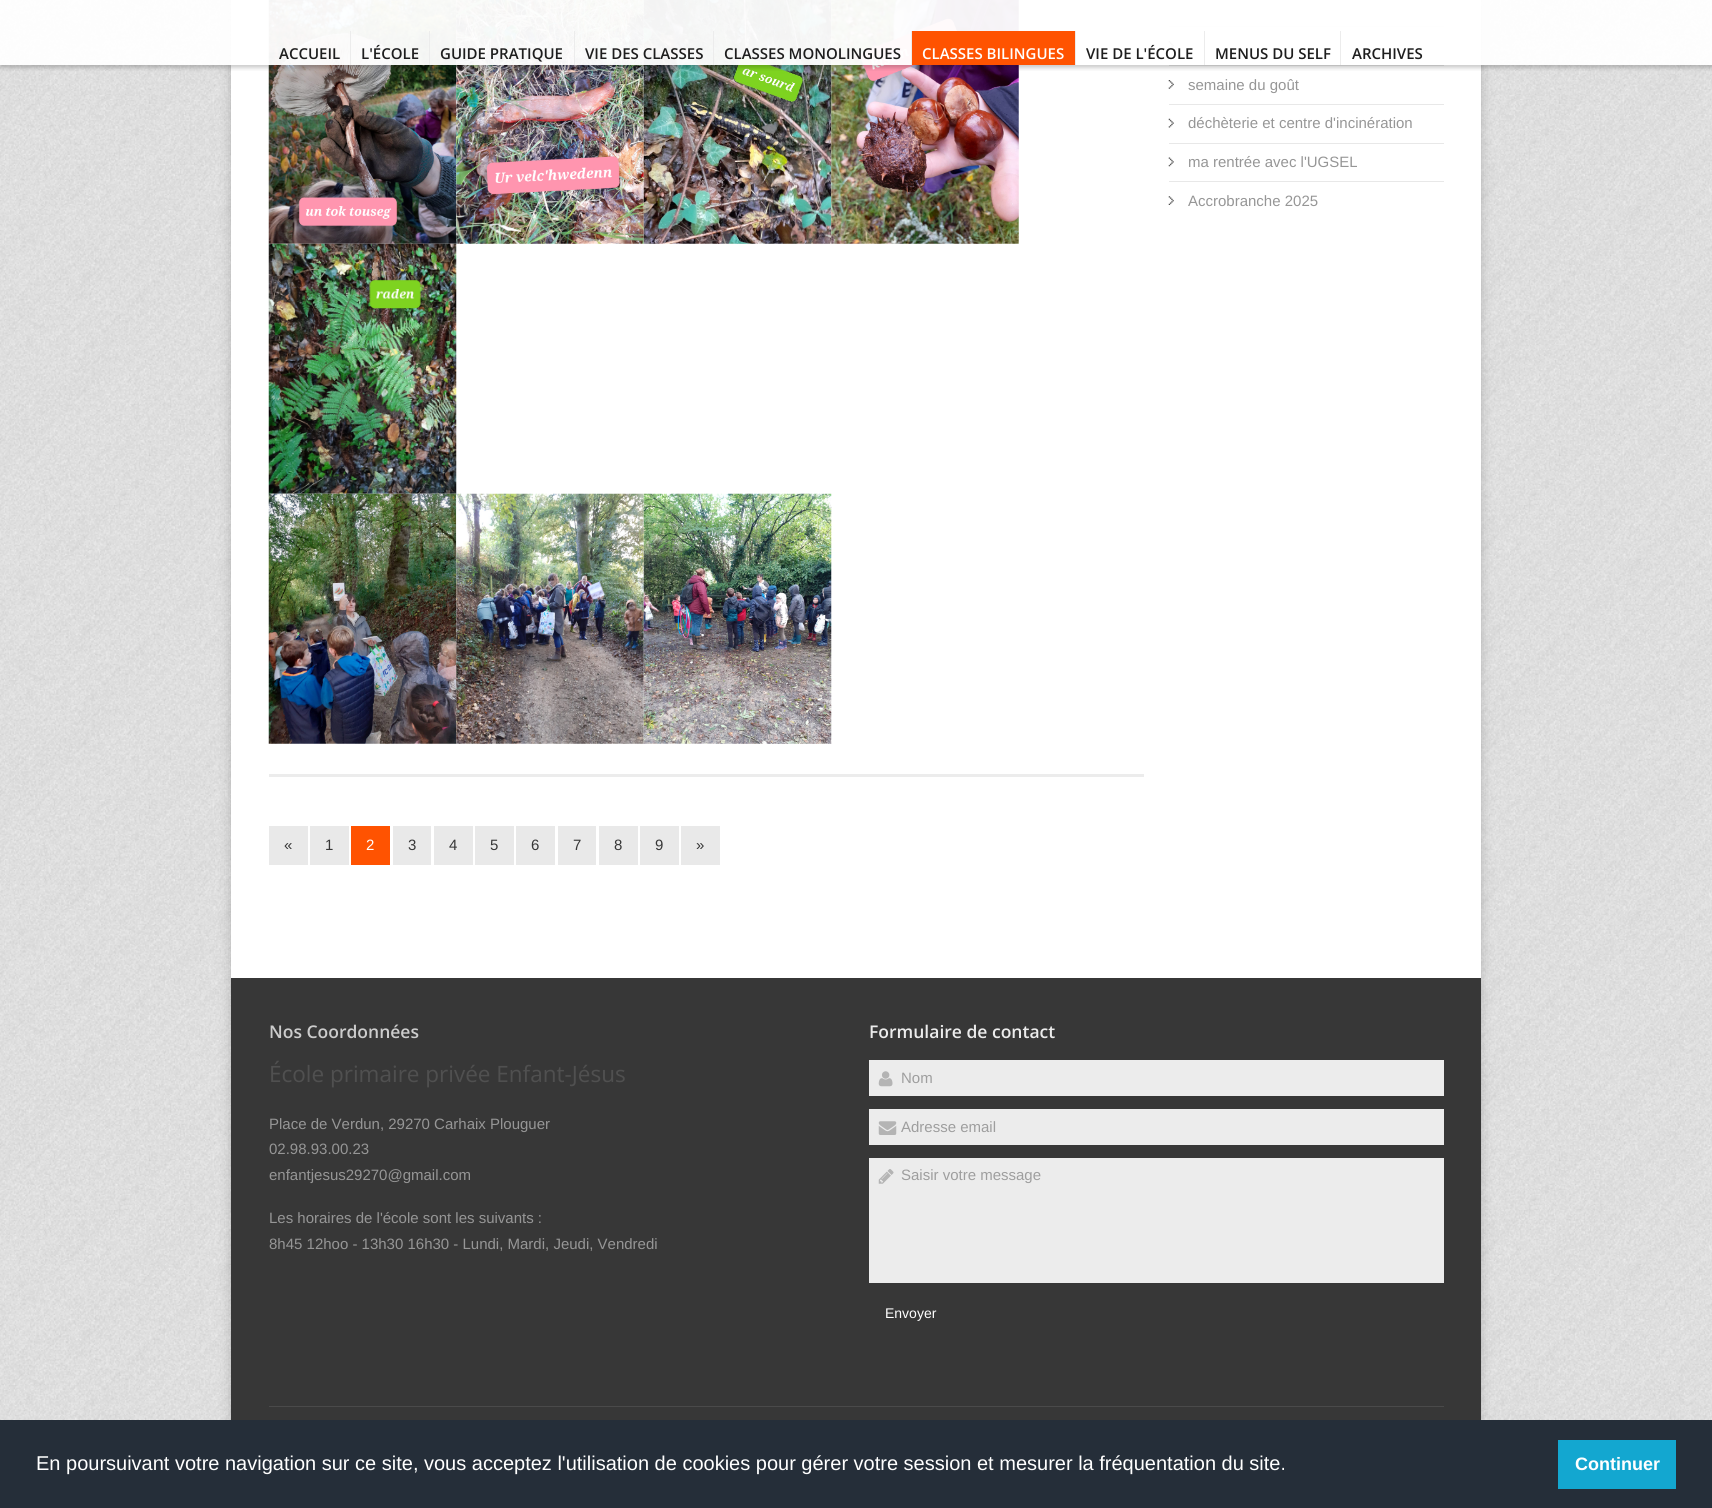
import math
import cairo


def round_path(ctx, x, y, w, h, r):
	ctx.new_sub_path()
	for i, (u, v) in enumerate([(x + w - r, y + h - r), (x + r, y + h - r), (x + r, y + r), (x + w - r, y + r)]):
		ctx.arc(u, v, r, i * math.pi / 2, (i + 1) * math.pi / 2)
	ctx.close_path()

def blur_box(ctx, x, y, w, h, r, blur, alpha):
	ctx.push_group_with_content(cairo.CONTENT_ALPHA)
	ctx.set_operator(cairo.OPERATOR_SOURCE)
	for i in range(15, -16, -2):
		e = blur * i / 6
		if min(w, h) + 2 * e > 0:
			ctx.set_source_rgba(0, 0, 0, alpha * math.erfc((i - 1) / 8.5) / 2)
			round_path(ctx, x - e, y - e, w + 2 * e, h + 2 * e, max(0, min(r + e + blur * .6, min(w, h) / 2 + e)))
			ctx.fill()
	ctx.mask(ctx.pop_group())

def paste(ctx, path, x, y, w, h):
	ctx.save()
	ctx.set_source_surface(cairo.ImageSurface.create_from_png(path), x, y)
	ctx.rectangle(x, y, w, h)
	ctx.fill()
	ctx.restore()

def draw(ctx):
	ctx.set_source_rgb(1, 1, 1)
	ctx.paint()
	paste(ctx, 'media/1.png', 0, 0, 1712, 1420)
	ctx.set_source_rgb(0, 0, 0)
	blur_box(ctx, 231, -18, 1250, 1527, 0, 6, 0.2)
	ctx.set_source_rgb(1, 1, 1)
	ctx.rectangle(231, 0, 1250, 978)
	ctx.fill()
	ctx.set_source_rgb(0.91, 0.91, 0.91)
	ctx.rectangle(1169, 26, 275, 1)
	ctx.fill()
	paste(ctx, 'media/2.png', 1168, 41, 6, 9)
	ctx.rectangle(1169, 65, 275, 1)
	ctx.fill()
	paste(ctx, 'media/6.png', 268, 0, 189, 244)
	paste(ctx, 'media/7.png', 456, 0, 188, 244)
	paste(ctx, 'media/8.png', 643, 0, 189, 244)
	paste(ctx, 'media/9.png', 831, 0, 188, 244)
	ctx.save()
	ctx.rectangle(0, 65, 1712, 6)
	ctx.clip()
	ctx.set_source_rgb(0, 0, 0)
	blur_box(ctx, 0, 3, 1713, 65, 0, 2, 0.2)
	ctx.restore()
	ctx.set_source_rgba(1, 1, 1, 0.95)
	ctx.rectangle(0, 0, 1712, 65)
	ctx.fill()
	ctx.select_font_face('Open Sans SemiBold')
	ctx.set_font_size(15)
	ctx.set_source_rgb(0.118, 0.118, 0.118)
	ctx.move_to(279, 59)
	ctx.show_text('ACCUEIL')
	ctx.set_source_rgb(0.922, 0.922, 0.922)
	ctx.rectangle(350, 31, 1, 34)
	ctx.fill()
	ctx.set_source_rgb(0.118, 0.118, 0.118)
	ctx.move_to(361, 59)
	ctx.show_text('L\'ÉCOLE')
	ctx.set_source_rgb(0.922, 0.922, 0.922)
	ctx.rectangle(429, 31, 1, 34)
	ctx.fill()
	ctx.set_source_rgb(0.118, 0.118, 0.118)
	ctx.move_to(440, 59)
	ctx.show_text('GUIDE PRATIQUE')
	ctx.set_source_rgb(0.922, 0.922, 0.922)
	ctx.rectangle(574, 31, 1, 34)
	ctx.fill()
	ctx.set_source_rgb(0.118, 0.118, 0.118)
	ctx.move_to(585, 59)
	ctx.show_text('VIE DES CLASSES')
	ctx.set_source_rgb(0.922, 0.922, 0.922)
	ctx.rectangle(713, 31, 1, 34)
	ctx.fill()
	ctx.set_source_rgb(0.118, 0.118, 0.118)
	ctx.move_to(724, 59)
	ctx.show_text('CLASSES MONOLINGUES')
	ctx.set_source_rgb(1, 0.325, 0.004)
	ctx.rectangle(912, 31, 163, 34)
	ctx.fill()
	ctx.set_source_rgb(0.922, 0.922, 0.922)
	ctx.rectangle(911, 31, 1, 34)
	ctx.fill()
	ctx.set_source_rgb(1, 1, 1)
	ctx.move_to(922, 59)
	ctx.show_text('CLASSES BILINGUES')
	ctx.set_source_rgb(0.922, 0.922, 0.922)
	ctx.rectangle(1075, 31, 1, 34)
	ctx.fill()
	ctx.set_source_rgb(0.118, 0.118, 0.118)
	ctx.move_to(1086, 59)
	ctx.show_text('VIE DE L\'ÉCOLE')
	ctx.set_source_rgb(0.922, 0.922, 0.922)
	ctx.rectangle(1204, 31, 1, 34)
	ctx.fill()
	ctx.set_source_rgb(0.118, 0.118, 0.118)
	ctx.move_to(1215, 59)
	ctx.show_text('MENUS DU SELF')
	ctx.set_source_rgb(0.922, 0.922, 0.922)
	ctx.rectangle(1340, 31, 1, 34)
	ctx.fill()
	ctx.set_source_rgb(0.118, 0.118, 0.118)
	ctx.move_to(1352, 59)
	ctx.show_text('ARCHIVES')
	paste(ctx, 'media/3.png', 1168, 80, 6, 9)
	ctx.select_font_face('Liberation Sans')
	ctx.set_source_rgb(0.588, 0.588, 0.588)
	ctx.move_to(1188, 90)
	ctx.show_text('semaine du goût')
	ctx.set_source_rgb(0.91, 0.91, 0.91)
	ctx.rectangle(1169, 104, 275, 1)
	ctx.fill()
	paste(ctx, 'media/4.png', 1168, 118, 6, 10)
	ctx.set_source_rgb(0.588, 0.588, 0.588)
	ctx.move_to(1188, 128)
	ctx.show_text('déchèterie et centre d\'incinération')
	ctx.set_source_rgb(0.91, 0.91, 0.91)
	ctx.rectangle(1169, 143, 275, 1)
	ctx.fill()
	paste(ctx, 'media/5.png', 1168, 157, 6, 10)
	ctx.set_source_rgb(0.588, 0.588, 0.588)
	ctx.move_to(1188, 167)
	ctx.show_text('ma rentrée avec l\'UGSEL')
	ctx.set_source_rgb(0.91, 0.91, 0.91)
	ctx.rectangle(1169, 181, 275, 1)
	ctx.fill()
	paste(ctx, 'media/2.png', 1168, 196, 6, 9)
	ctx.set_source_rgb(0.588, 0.588, 0.588)
	ctx.move_to(1188, 206)
	ctx.show_text('Accrobranche 2025')
	ctx.set_source_rgb(0.922, 0.922, 0.922)
	ctx.rectangle(269, 774, 875, 3)
	ctx.fill()
	paste(ctx, 'media/10.png', 268, 243, 189, 251)
	paste(ctx, 'media/11.png', 268, 493, 189, 251)
	paste(ctx, 'media/12.png', 456, 493, 188, 251)
	paste(ctx, 'media/13.png', 643, 493, 189, 251)
	ctx.set_source_rgb(0.914, 0.914, 0.914)
	ctx.rectangle(269, 826, 39, 39)
	ctx.fill()
	ctx.set_source_rgb(0.216, 0.216, 0.216)
	ctx.move_to(284, 850)
	ctx.show_text('«')
	ctx.set_source_rgb(0.914, 0.914, 0.914)
	ctx.rectangle(310, 826, 39, 39)
	ctx.fill()
	ctx.set_source_rgb(0.216, 0.216, 0.216)
	ctx.move_to(325, 850)
	ctx.show_text('1')
	ctx.set_source_rgb(1, 0.325, 0.004)
	ctx.rectangle(351, 826, 39, 39)
	ctx.fill()
	ctx.set_source_rgb(1, 1, 1)
	ctx.move_to(366, 850)
	ctx.show_text('2')
	ctx.set_source_rgb(0.914, 0.914, 0.914)
	ctx.rectangle(393, 826, 38, 39)
	ctx.fill()
	ctx.set_source_rgb(0.216, 0.216, 0.216)
	ctx.move_to(408, 850)
	ctx.show_text('3')
	ctx.set_source_rgb(0.914, 0.914, 0.914)
	ctx.rectangle(434, 826, 39, 39)
	ctx.fill()
	ctx.set_source_rgb(0.216, 0.216, 0.216)
	ctx.move_to(449, 850)
	ctx.show_text('4')
	ctx.set_source_rgb(0.914, 0.914, 0.914)
	ctx.rectangle(475, 826, 39, 39)
	ctx.fill()
	ctx.set_source_rgb(0.216, 0.216, 0.216)
	ctx.move_to(490, 850)
	ctx.show_text('5')
	ctx.set_source_rgb(0.914, 0.914, 0.914)
	ctx.rectangle(516, 826, 39, 39)
	ctx.fill()
	ctx.set_source_rgb(0.216, 0.216, 0.216)
	ctx.move_to(531, 850)
	ctx.show_text('6')
	ctx.set_source_rgb(0.914, 0.914, 0.914)
	ctx.rectangle(558, 826, 38, 39)
	ctx.fill()
	ctx.set_source_rgb(0.216, 0.216, 0.216)
	ctx.move_to(573, 850)
	ctx.show_text('7')
	ctx.set_source_rgb(0.914, 0.914, 0.914)
	ctx.rectangle(599, 826, 39, 39)
	ctx.fill()
	ctx.set_source_rgb(0.216, 0.216, 0.216)
	ctx.move_to(614, 850)
	ctx.show_text('8')
	ctx.set_source_rgb(0.914, 0.914, 0.914)
	ctx.rectangle(640, 826, 39, 39)
	ctx.fill()
	ctx.set_source_rgb(0.216, 0.216, 0.216)
	ctx.move_to(655, 850)
	ctx.show_text('9')
	ctx.set_source_rgb(0.914, 0.914, 0.914)
	ctx.rectangle(681, 826, 39, 39)
	ctx.fill()
	ctx.set_source_rgb(0.216, 0.216, 0.216)
	ctx.move_to(696, 850)
	ctx.show_text('»')
	ctx.rectangle(231, 978, 1250, 442)
	ctx.fill()
	ctx.select_font_face('Open Sans SemiBold')
	ctx.set_font_size(17.5)
	ctx.set_source_rgb(0.8, 0.8, 0.8)
	ctx.move_to(269, 1038)
	ctx.show_text('Nos Coordonnées')
	ctx.select_font_face('Open Sans')
	ctx.set_font_size(22.5)
	ctx.set_source_rgb(0.314, 0.314, 0.314)
	ctx.move_to(269, 1082)
	ctx.show_text('École primaire privée Enfant-Jésus')
	ctx.select_font_face('Liberation Sans')
	ctx.set_font_size(15)
	ctx.set_source_rgb(0.588, 0.588, 0.588)
	for x, y, s in [
		(269, 1129, 'Place de Verdun, 29270 Carhaix Plouguer'),
		(269, 1154, '02.98.93.00.23'),
		(269, 1180, 'enfantjesus29270@gmail.com'),
		(269, 1223, 'Les horaires de l\'école sont les suivants :'),
		(269, 1249, '8h45 12hoo - 13h30 16h30 - Lundi, Mardi, Jeudi, Vendredi'),
	]:
		ctx.move_to(x, y)
		ctx.show_text(s)
	ctx.select_font_face('Open Sans SemiBold')
	ctx.set_font_size(17.5)
	ctx.set_source_rgb(0.922, 0.922, 0.922)
	ctx.move_to(869, 1038)
	ctx.show_text('Formulaire de contact')
	ctx.rectangle(869, 1060, 575, 36)
	ctx.fill()
	paste(ctx, 'media/14.png', 878, 1071, 15, 16)
	ctx.select_font_face('Liberation Sans')
	ctx.set_font_size(15)
	ctx.set_source_rgb(0.62, 0.62, 0.62)
	ctx.move_to(901, 1083)
	ctx.show_text('Nom')
	ctx.set_source_rgb(0.922, 0.922, 0.922)
	ctx.rectangle(869, 1109, 575, 36)
	ctx.fill()
	paste(ctx, 'media/15.png', 878, 1121, 19, 14)
	ctx.set_source_rgb(0.62, 0.62, 0.62)
	ctx.move_to(901, 1132)
	ctx.show_text('Adresse email')
	ctx.set_source_rgb(0.922, 0.922, 0.922)
	ctx.rectangle(869, 1158, 575, 125)
	ctx.fill()
	paste(ctx, 'media/16.png', 878, 1169, 16, 15)
	ctx.set_source_rgb(0.62, 0.62, 0.62)
	ctx.move_to(901, 1180)
	ctx.show_text('Saisir votre message')
	ctx.set_font_size(14)
	ctx.set_source_rgb(1, 1, 1)
	ctx.move_to(885, 1318)
	ctx.show_text('Envoyer')
	ctx.set_source_rgb(0.29, 0.29, 0.29)
	ctx.rectangle(269, 1406, 1175, 1)
	ctx.fill()
	ctx.set_source_rgb(0.145, 0.18, 0.224)
	ctx.rectangle(0, 1420, 1712, 88)
	ctx.fill()
	ctx.set_font_size(20)
	ctx.set_source_rgb(1, 1, 1)
	ctx.move_to(36, 1470)
	ctx.show_text('En poursuivant votre navigation sur ce site, vous acceptez l\'utilisation de cookies pour gérer votre session et mesurer la fréquentation du site.')
	ctx.set_source_rgb(0.078, 0.655, 0.816)
	ctx.rectangle(1558, 1440, 118, 49)
	ctx.fill()
	ctx.select_font_face('Liberation Sans', cairo.FONT_SLANT_NORMAL, cairo.FONT_WEIGHT_BOLD)
	ctx.set_font_size(18)
	ctx.set_source_rgb(1, 1, 1)
	ctx.move_to(1575, 1470)
	ctx.show_text('Continuer')


surface = cairo.ImageSurface(cairo.FORMAT_RGB24, 1712, 1508)
ctx = cairo.Context(surface)
options = cairo.FontOptions()
options.set_hint_metrics(cairo.HINT_METRICS_OFF)
options.set_hint_style(cairo.HINT_STYLE_NONE)
ctx.set_font_options(options)
ctx.set_miter_limit(4)
draw(ctx)
surface.write_to_png('image.png')
